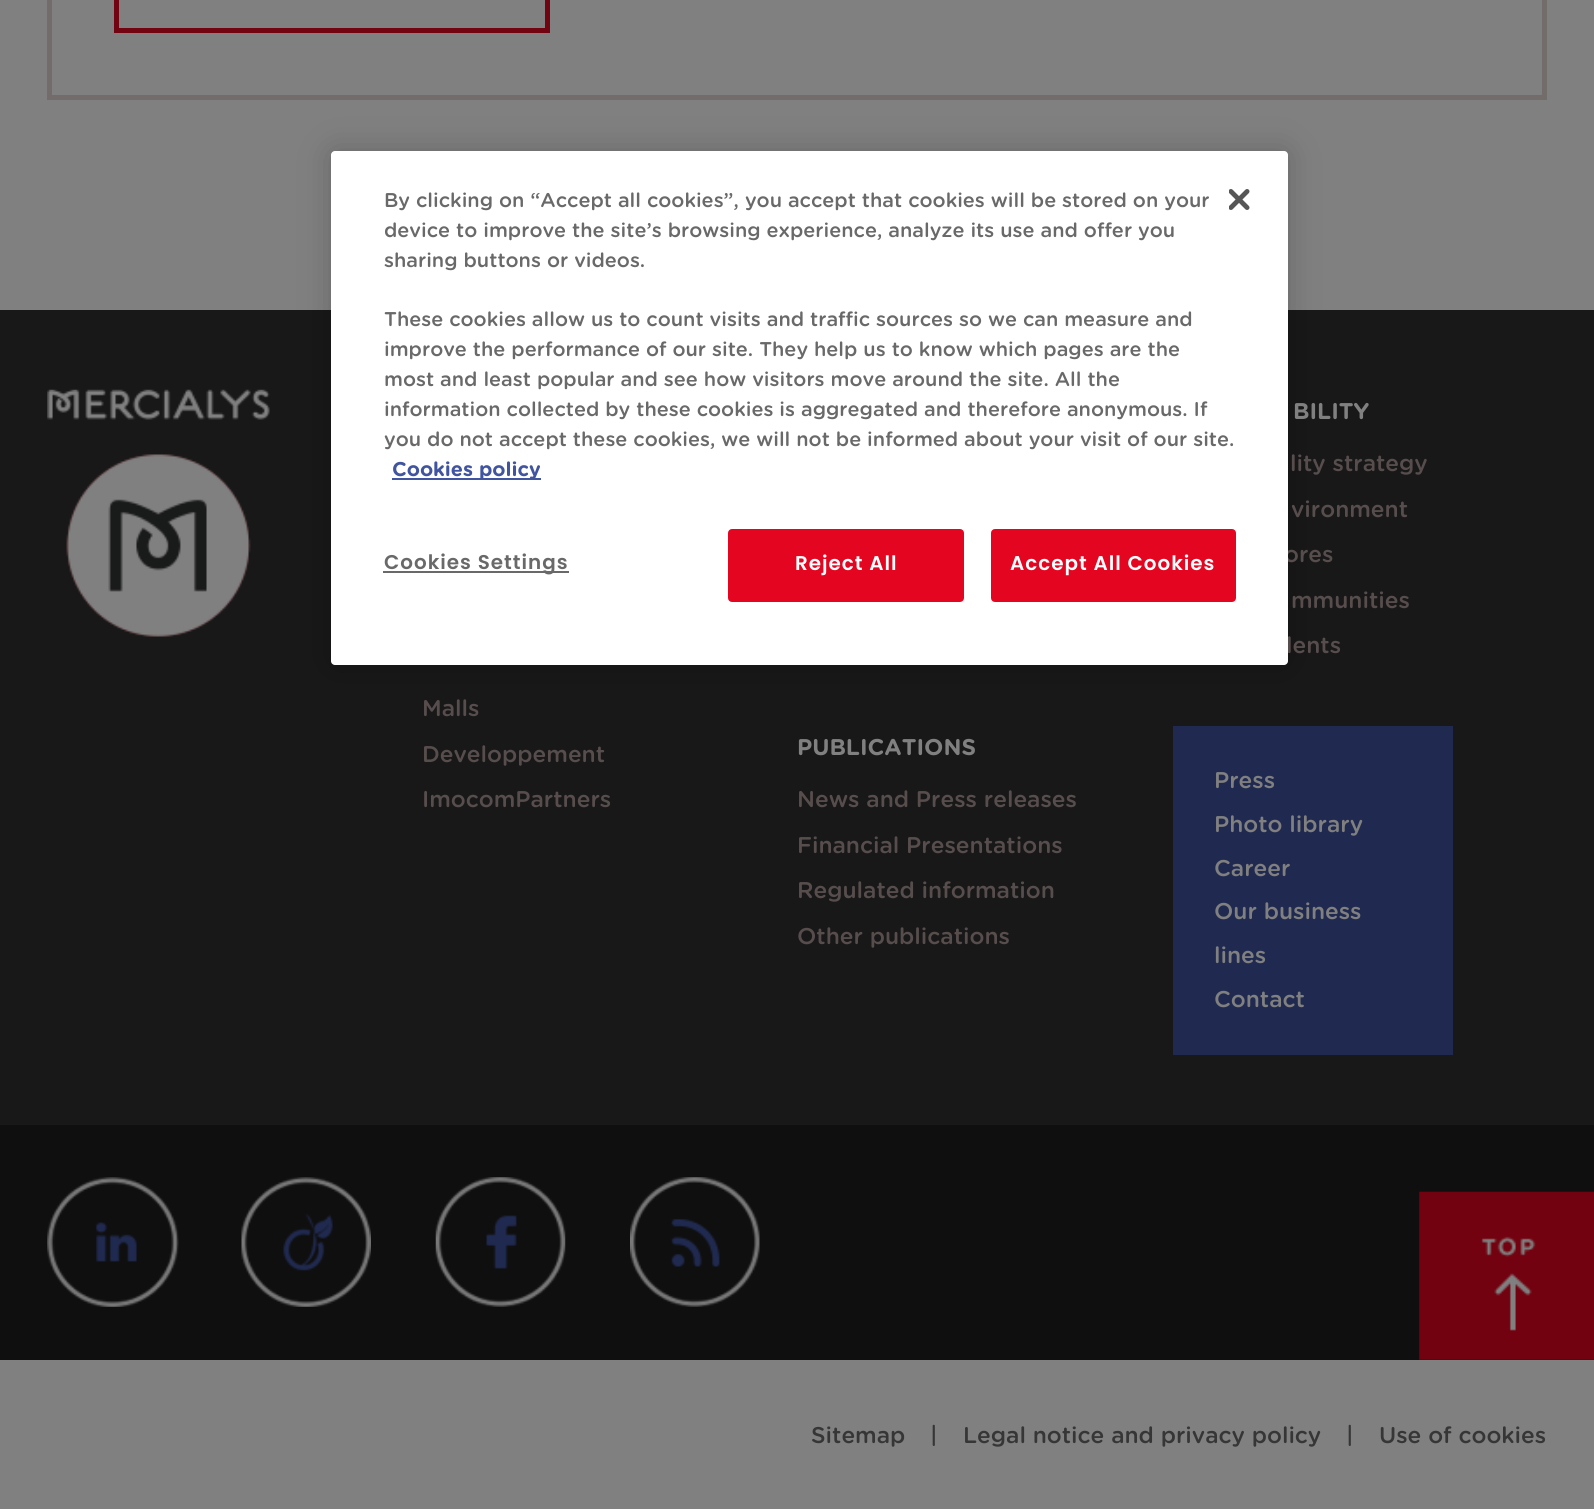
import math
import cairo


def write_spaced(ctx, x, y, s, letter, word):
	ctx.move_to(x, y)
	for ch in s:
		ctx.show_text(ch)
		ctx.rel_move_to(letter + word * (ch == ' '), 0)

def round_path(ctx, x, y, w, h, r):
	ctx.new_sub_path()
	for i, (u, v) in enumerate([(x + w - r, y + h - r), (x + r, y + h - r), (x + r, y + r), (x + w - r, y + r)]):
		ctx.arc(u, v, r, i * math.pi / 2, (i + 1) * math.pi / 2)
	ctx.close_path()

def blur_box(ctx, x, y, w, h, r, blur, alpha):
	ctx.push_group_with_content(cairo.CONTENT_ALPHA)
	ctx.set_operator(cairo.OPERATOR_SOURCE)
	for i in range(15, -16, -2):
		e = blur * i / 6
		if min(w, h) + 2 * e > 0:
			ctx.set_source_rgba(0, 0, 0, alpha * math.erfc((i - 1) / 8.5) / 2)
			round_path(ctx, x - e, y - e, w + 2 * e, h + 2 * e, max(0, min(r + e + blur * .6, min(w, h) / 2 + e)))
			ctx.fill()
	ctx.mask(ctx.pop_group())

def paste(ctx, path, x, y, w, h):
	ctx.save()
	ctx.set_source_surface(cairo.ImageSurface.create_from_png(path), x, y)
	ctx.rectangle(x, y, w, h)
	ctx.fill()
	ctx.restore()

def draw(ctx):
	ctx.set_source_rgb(0.502, 0.502, 0.502)
	ctx.paint()
	ctx.rectangle(49.5, -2.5, 1495, 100)
	ctx.set_source_rgb(0.447, 0.427, 0.42)
	ctx.set_line_width(5)
	ctx.stroke()
	ctx.rectangle(116.5, -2.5, 431, 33)
	ctx.set_source_rgb(0.447, 0.012, 0.063)
	ctx.stroke()
	ctx.set_source_rgb(0.094, 0.094, 0.094)
	ctx.rectangle(0, 310, 1594, 815)
	ctx.fill()
	ctx.set_source_rgb(0, 0, 0)
	blur_box(ctx, 331, 151, 957, 514, 4, 16, 0.2)
	ctx.select_font_face('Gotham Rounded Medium')
	ctx.set_font_size(22.75)
	ctx.set_source_rgb(0.341, 0.302, 0.302)
	ctx.move_to(1284, 562)
	ctx.show_text('ores')
	ctx.move_to(1286, 653)
	ctx.show_text('lents')
	ctx.set_source_rgb(1, 1, 1)
	round_path(ctx, 331, 151, 957, 514, 4)
	ctx.fill()
	ctx.set_font_size(19.9)
	ctx.set_source_rgb(0.412, 0.412, 0.412)
	for x, y, s in [
		(384, 207, 'By clicking on “Accept all cookies”, you accept that cookies will be stored on your'),
		(384, 237, 'device to improve the site’s browsing experience, analyze its use and offer you'),
		(384, 267, 'sharing buttons or videos.'),
		(384, 326, 'These cookies allow us to count visits and traffic sources so we can measure and'),
		(384, 356, 'improve the performance of our site. They help us to know which pages are the'),
		(384, 386, 'most and least popular and see how visitors move around the site. All the'),
		(384, 416, 'information collected by these cookies is aggregated and therefore anonymous. If'),
		(384, 446, 'you do not accept these cookies, we will not be informed about your visit of our site.'),
	]:
		ctx.move_to(x, y)
		ctx.show_text(s)
	ctx.set_source_rgb(0.251, 0.329, 0.627)
	ctx.rectangle(392, 478, 149, 2)
	ctx.fill()
	ctx.select_font_face('Gotham Rounded', cairo.FONT_SLANT_NORMAL, cairo.FONT_WEIGHT_BOLD)
	ctx.move_to(392, 476)
	ctx.show_text('Cookies policy')
	paste(ctx, 'media/1.png', 1229, 189, 21, 21)
	ctx.set_source_rgb(0.412, 0.412, 0.412)
	ctx.rectangle(383, 571, 186, 2)
	ctx.fill()
	ctx.select_font_face('Poppins SemiBold')
	write_spaced(ctx, 384, 569, 'Cookies Settings', 1, 0)
	ctx.set_source_rgb(0.894, 0.02, 0.125)
	round_path(ctx, 729, 530, 234, 71, 3)
	ctx.fill_preserve()
	ctx.set_line_width(2)
	ctx.stroke()
	ctx.set_source_rgb(1, 1, 1)
	write_spaced(ctx, 795, 570, 'Reject All', 1, 0)
	ctx.set_source_rgb(0.894, 0.02, 0.125)
	round_path(ctx, 992, 530, 243, 71, 3)
	ctx.fill_preserve()
	ctx.stroke()
	ctx.set_source_rgb(1, 1, 1)
	write_spaced(ctx, 1010, 570, 'Accept All Cookies', 1, 0)
	paste(ctx, 'media/2.png', 47, 389, 223, 248)
	ctx.select_font_face('Gotham Rounded Medium')
	ctx.set_font_size(22.75)
	ctx.set_source_rgb(0.341, 0.302, 0.302)
	for x, y, s in [
		(422, 716, 'Malls'),
		(422, 762, 'Developpement'),
		(422, 807, 'ImocomPartners'),
	]:
		ctx.move_to(x, y)
		ctx.show_text(s)
	ctx.select_font_face('Gotham Rounded', cairo.FONT_SLANT_NORMAL, cairo.FONT_WEIGHT_BOLD)
	ctx.set_source_rgb(0.502, 0.502, 0.502)
	ctx.move_to(797, 755)
	ctx.show_text('PUBLICATIONS')
	ctx.select_font_face('Gotham Rounded Medium')
	ctx.set_source_rgb(0.341, 0.302, 0.302)
	for x, y, s in [
		(797, 807, 'News and Press releases'),
		(797, 853, 'Financial Presentations'),
		(797, 898, 'Regulated information'),
		(797, 944, 'Other publications'),
	]:
		ctx.move_to(x, y)
		ctx.show_text(s)
	ctx.select_font_face('Gotham Rounded', cairo.FONT_SLANT_NORMAL, cairo.FONT_WEIGHT_BOLD)
	ctx.set_source_rgb(0.502, 0.502, 0.502)
	ctx.move_to(1293, 419)
	ctx.show_text('BILITY')
	ctx.select_font_face('Gotham Rounded Medium')
	ctx.set_source_rgb(0.341, 0.302, 0.302)
	for x, y, s in [
		(1290, 471, 'lity strategy'),
		(1291, 517, 'vironment'),
		(1291, 608, 'mmunities'),
	]:
		ctx.move_to(x, y)
		ctx.show_text(s)
	ctx.set_source_rgb(0.125, 0.165, 0.314)
	ctx.rectangle(1173, 726, 280, 329)
	ctx.fill()
	ctx.set_source_rgb(0.502, 0.502, 0.502)
	for x, y, s in [
		(1214, 788, 'Press'),
		(1214, 832, 'Photo library'),
		(1214, 876, 'Career'),
		(1214, 919, 'Our business'),
		(1214, 963, 'lines'),
		(1214, 1007, 'Contact'),
	]:
		ctx.move_to(x, y)
		ctx.show_text(s)
	ctx.set_source_rgb(0.059, 0.059, 0.059)
	ctx.rectangle(0, 1125, 1594, 235)
	ctx.fill()
	paste(ctx, 'media/3.png', 47, 1177, 132, 130)
	paste(ctx, 'media/4.png', 241, 1177, 130, 130)
	paste(ctx, 'media/5.png', 435, 1177, 131, 130)
	paste(ctx, 'media/6.png', 630, 1177, 130, 130)
	ctx.set_source_rgb(0.212, 0.212, 0.212)
	for x, y, s in [
		(811, 1443, 'Sitemap'),
		(930, 1443, '|'),
		(963, 1443, 'Legal notice and privacy policy'),
		(1346, 1443, '|'),
		(1379, 1443, 'Use of cookies'),
	]:
		ctx.move_to(x, y)
		ctx.show_text(s)
	paste(ctx, 'media/7.png', 1419, 1191, 175, 169)


surface = cairo.ImageSurface(cairo.FORMAT_RGB24, 1594, 1509)
ctx = cairo.Context(surface)
options = cairo.FontOptions()
options.set_hint_metrics(cairo.HINT_METRICS_OFF)
options.set_hint_style(cairo.HINT_STYLE_NONE)
ctx.set_font_options(options)
ctx.set_miter_limit(4)
draw(ctx)
surface.write_to_png('image.png')
